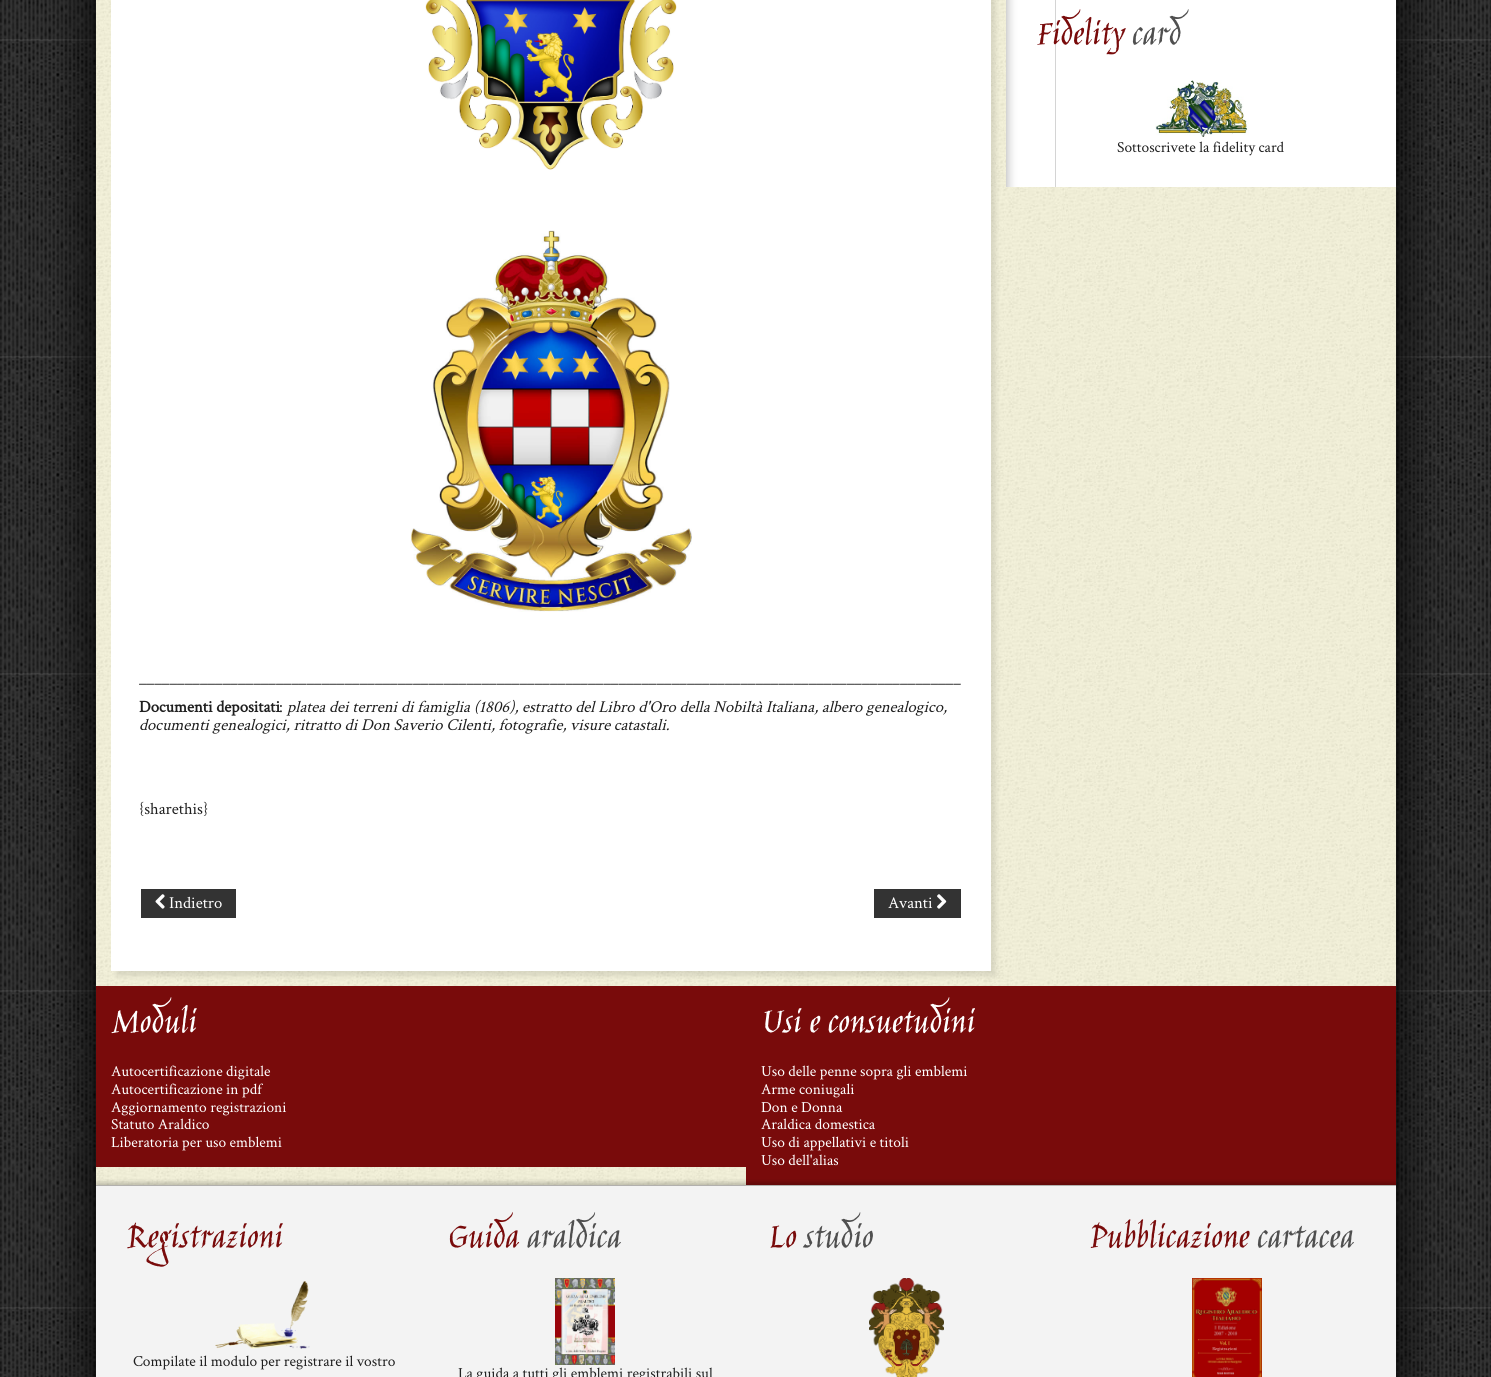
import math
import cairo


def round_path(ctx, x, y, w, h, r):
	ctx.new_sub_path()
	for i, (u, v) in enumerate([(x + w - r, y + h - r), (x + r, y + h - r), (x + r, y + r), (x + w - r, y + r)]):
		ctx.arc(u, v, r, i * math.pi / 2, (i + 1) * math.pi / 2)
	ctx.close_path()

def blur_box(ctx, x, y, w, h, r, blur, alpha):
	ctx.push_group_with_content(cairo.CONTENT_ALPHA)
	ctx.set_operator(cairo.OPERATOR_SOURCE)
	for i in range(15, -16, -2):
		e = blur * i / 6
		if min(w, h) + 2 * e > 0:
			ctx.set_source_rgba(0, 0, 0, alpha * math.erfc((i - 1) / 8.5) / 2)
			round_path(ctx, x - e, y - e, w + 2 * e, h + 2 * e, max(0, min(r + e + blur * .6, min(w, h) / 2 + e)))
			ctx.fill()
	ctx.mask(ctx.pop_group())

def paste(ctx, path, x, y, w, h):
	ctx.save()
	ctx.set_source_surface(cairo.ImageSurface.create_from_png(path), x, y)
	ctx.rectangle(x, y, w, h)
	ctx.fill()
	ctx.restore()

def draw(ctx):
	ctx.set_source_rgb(1, 1, 1)
	ctx.paint()
	paste(ctx, 'media/1.png', 0, 0, 1491, 1377)
	ctx.set_source_rgb(0, 0, 0)
	blur_box(ctx, 96, -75, 1300, 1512, 0, 25, 1)
	paste(ctx, 'media/2.png', 96, 0, 1300, 1185)
	ctx.set_source_rgb(1, 1, 1)
	ctx.rectangle(1056, 0, 340, 187)
	ctx.fill()
	paste(ctx, 'media/3.png', 1006, 0, 50, 187)
	ctx.select_font_face('Jim Nightshade')
	ctx.set_font_size(38.5)
	ctx.set_source_rgb(0.475, 0.043, 0.043)
	ctx.move_to(1036, 44)
	ctx.show_text('Fidelity')
	ctx.set_source_rgb(0.31, 0.31, 0.31)
	ctx.move_to(1131, 44)
	ctx.show_text('card')
	paste(ctx, 'media/4.png', 1155, 80, 94, 57)
	ctx.select_font_face('Crimson Text')
	ctx.set_font_size(15.4)
	ctx.set_source_rgb(0.122, 0.122, 0.122)
	ctx.move_to(1117, 152)
	ctx.show_text('Sottoscrivete la fidelity card')
	ctx.set_source_rgb(0, 0, 0)
	blur_box(ctx, 116, -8, 880, 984, 0, 2.5, 0.1)
	ctx.set_source_rgb(1, 1, 1)
	ctx.rectangle(111, 0, 880, 971)
	ctx.fill()
	paste(ctx, 'media/5.png', 425, 0, 252, 170)
	paste(ctx, 'media/6.png', 410, 230, 282, 382)
	ctx.set_font_size(16.65)
	ctx.set_source_rgb(0.122, 0.122, 0.122)
	ctx.move_to(139, 684)
	ctx.show_text('____________________________________________________________________________________________________________')
	ctx.select_font_face('Crimson Text', cairo.FONT_SLANT_NORMAL, cairo.FONT_WEIGHT_BOLD)
	ctx.move_to(139, 712)
	ctx.show_text('Documenti depositati')
	ctx.select_font_face('Crimson Text')
	ctx.move_to(279, 712)
	ctx.show_text(':')
	ctx.select_font_face('Crimson Text', cairo.FONT_SLANT_ITALIC)
	ctx.move_to(287, 712)
	ctx.show_text('platea dei terreni di famiglia (1806), estratto del Libro d\'Oro della Nobiltà Italiana, albero genealogico,')
	ctx.move_to(139, 730)
	ctx.show_text('documenti genealogici, ritratto di Don Saverio Cilenti, fotografie, visure catastali.')
	ctx.select_font_face('Crimson Text')
	ctx.move_to(139, 814)
	ctx.show_text('{sharethis}')
	ctx.set_source_rgb(0.2, 0.2, 0.2)
	ctx.rectangle(141, 889, 95, 29)
	ctx.fill()
	paste(ctx, 'media/7.png', 155, 894, 10, 15)
	ctx.set_source_rgb(1, 1, 1)
	ctx.move_to(169, 908)
	ctx.show_text('Indietro')
	ctx.set_source_rgb(0.2, 0.2, 0.2)
	ctx.rectangle(874, 889, 87, 29)
	ctx.fill()
	ctx.set_source_rgb(1, 1, 1)
	ctx.move_to(888, 908)
	ctx.show_text('Avanti')
	paste(ctx, 'media/8.png', 937, 894, 10, 15)
	ctx.set_source_rgb(0.475, 0.043, 0.043)
	ctx.rectangle(96, 986, 650, 181)
	ctx.fill()
	ctx.select_font_face('Jim Nightshade')
	ctx.set_font_size(38.5)
	ctx.set_source_rgb(1, 1, 1)
	ctx.move_to(111, 1032)
	ctx.show_text('Moduli')
	ctx.select_font_face('Crimson Text')
	ctx.set_font_size(15.4)
	for x, y, s in [
		(111, 1076, 'Autocertificazione digitale'),
		(111, 1094, 'Autocertificazione in pdf'),
		(111, 1112, 'Aggiornamento registrazioni'),
		(111, 1129, 'Statuto Araldico'),
		(111, 1147, 'Liberatoria per uso emblemi'),
	]:
		ctx.move_to(x, y)
		ctx.show_text(s)
	ctx.set_source_rgb(0.475, 0.043, 0.043)
	ctx.rectangle(746, 986, 650, 199)
	ctx.fill()
	ctx.select_font_face('Jim Nightshade')
	ctx.set_font_size(38.5)
	ctx.set_source_rgb(1, 1, 1)
	ctx.move_to(761, 1032)
	ctx.show_text('Usi e consuetudini')
	ctx.select_font_face('Crimson Text')
	ctx.set_font_size(15.4)
	for x, y, s in [
		(761, 1076, 'Uso delle penne sopra gli emblemi'),
		(761, 1094, 'Arme coniugali'),
		(761, 1112, 'Don e Donna'),
		(761, 1129, 'Araldica domestica'),
		(761, 1147, 'Uso di appellativi e titoli'),
		(761, 1165, 'Uso dell\'alias'),
	]:
		ctx.move_to(x, y)
		ctx.show_text(s)
	ctx.set_source_rgb(0, 0, 0)
	blur_box(ctx, 96, 1182, 1300, 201, 0, 2, 0.2)
	ctx.set_source_rgb(0.953, 0.953, 0.953)
	ctx.rectangle(96, 1186, 1300, 191)
	ctx.fill()
	ctx.set_source_rgb(0.698, 0.69, 0.678)
	ctx.rectangle(96, 1185, 1300, 1)
	ctx.fill()
	ctx.select_font_face('Jim Nightshade')
	ctx.set_font_size(38.5)
	ctx.set_source_rgb(0.475, 0.043, 0.043)
	ctx.move_to(126, 1247)
	ctx.show_text('Registrazioni')
	paste(ctx, 'media/9.png', 215, 1281, 95, 68)
	ctx.select_font_face('Crimson Text')
	ctx.set_font_size(15.4)
	ctx.set_source_rgb(0.122, 0.122, 0.122)
	ctx.move_to(133, 1366)
	ctx.show_text('Compilate il modulo per registrare il vostro')
	ctx.select_font_face('Jim Nightshade')
	ctx.set_font_size(38.5)
	ctx.set_source_rgb(0.475, 0.043, 0.043)
	ctx.move_to(447, 1247)
	ctx.show_text('Guida')
	ctx.set_source_rgb(0.31, 0.31, 0.31)
	ctx.move_to(526, 1247)
	ctx.show_text('araldica')
	paste(ctx, 'media/10.png', 555, 1278, 60, 87)
	ctx.select_font_face('Crimson Text')
	ctx.set_font_size(15.4)
	ctx.set_source_rgb(0.122, 0.122, 0.122)
	ctx.move_to(458, 1378)
	ctx.show_text('La guida a tutti gli emblemi registrabili sul')
	ctx.select_font_face('Jim Nightshade')
	ctx.set_font_size(38.5)
	ctx.set_source_rgb(0.475, 0.043, 0.043)
	ctx.move_to(768, 1247)
	ctx.show_text('Lo')
	ctx.set_source_rgb(0.31, 0.31, 0.31)
	ctx.move_to(803, 1247)
	ctx.show_text('studio')
	paste(ctx, 'media/11.png', 869, 1278, 75, 99)
	ctx.set_source_rgb(0.475, 0.043, 0.043)
	ctx.move_to(1089, 1247)
	ctx.show_text('Pubblicazione')
	ctx.set_source_rgb(0.31, 0.31, 0.31)
	ctx.move_to(1256, 1247)
	ctx.show_text('cartacea')
	paste(ctx, 'media/12.png', 1192, 1278, 70, 99)


surface = cairo.ImageSurface(cairo.FORMAT_RGB24, 1491, 1377)
ctx = cairo.Context(surface)
options = cairo.FontOptions()
options.set_hint_metrics(cairo.HINT_METRICS_OFF)
options.set_hint_style(cairo.HINT_STYLE_NONE)
ctx.set_font_options(options)
ctx.set_miter_limit(4)
draw(ctx)
surface.write_to_png('image.png')
